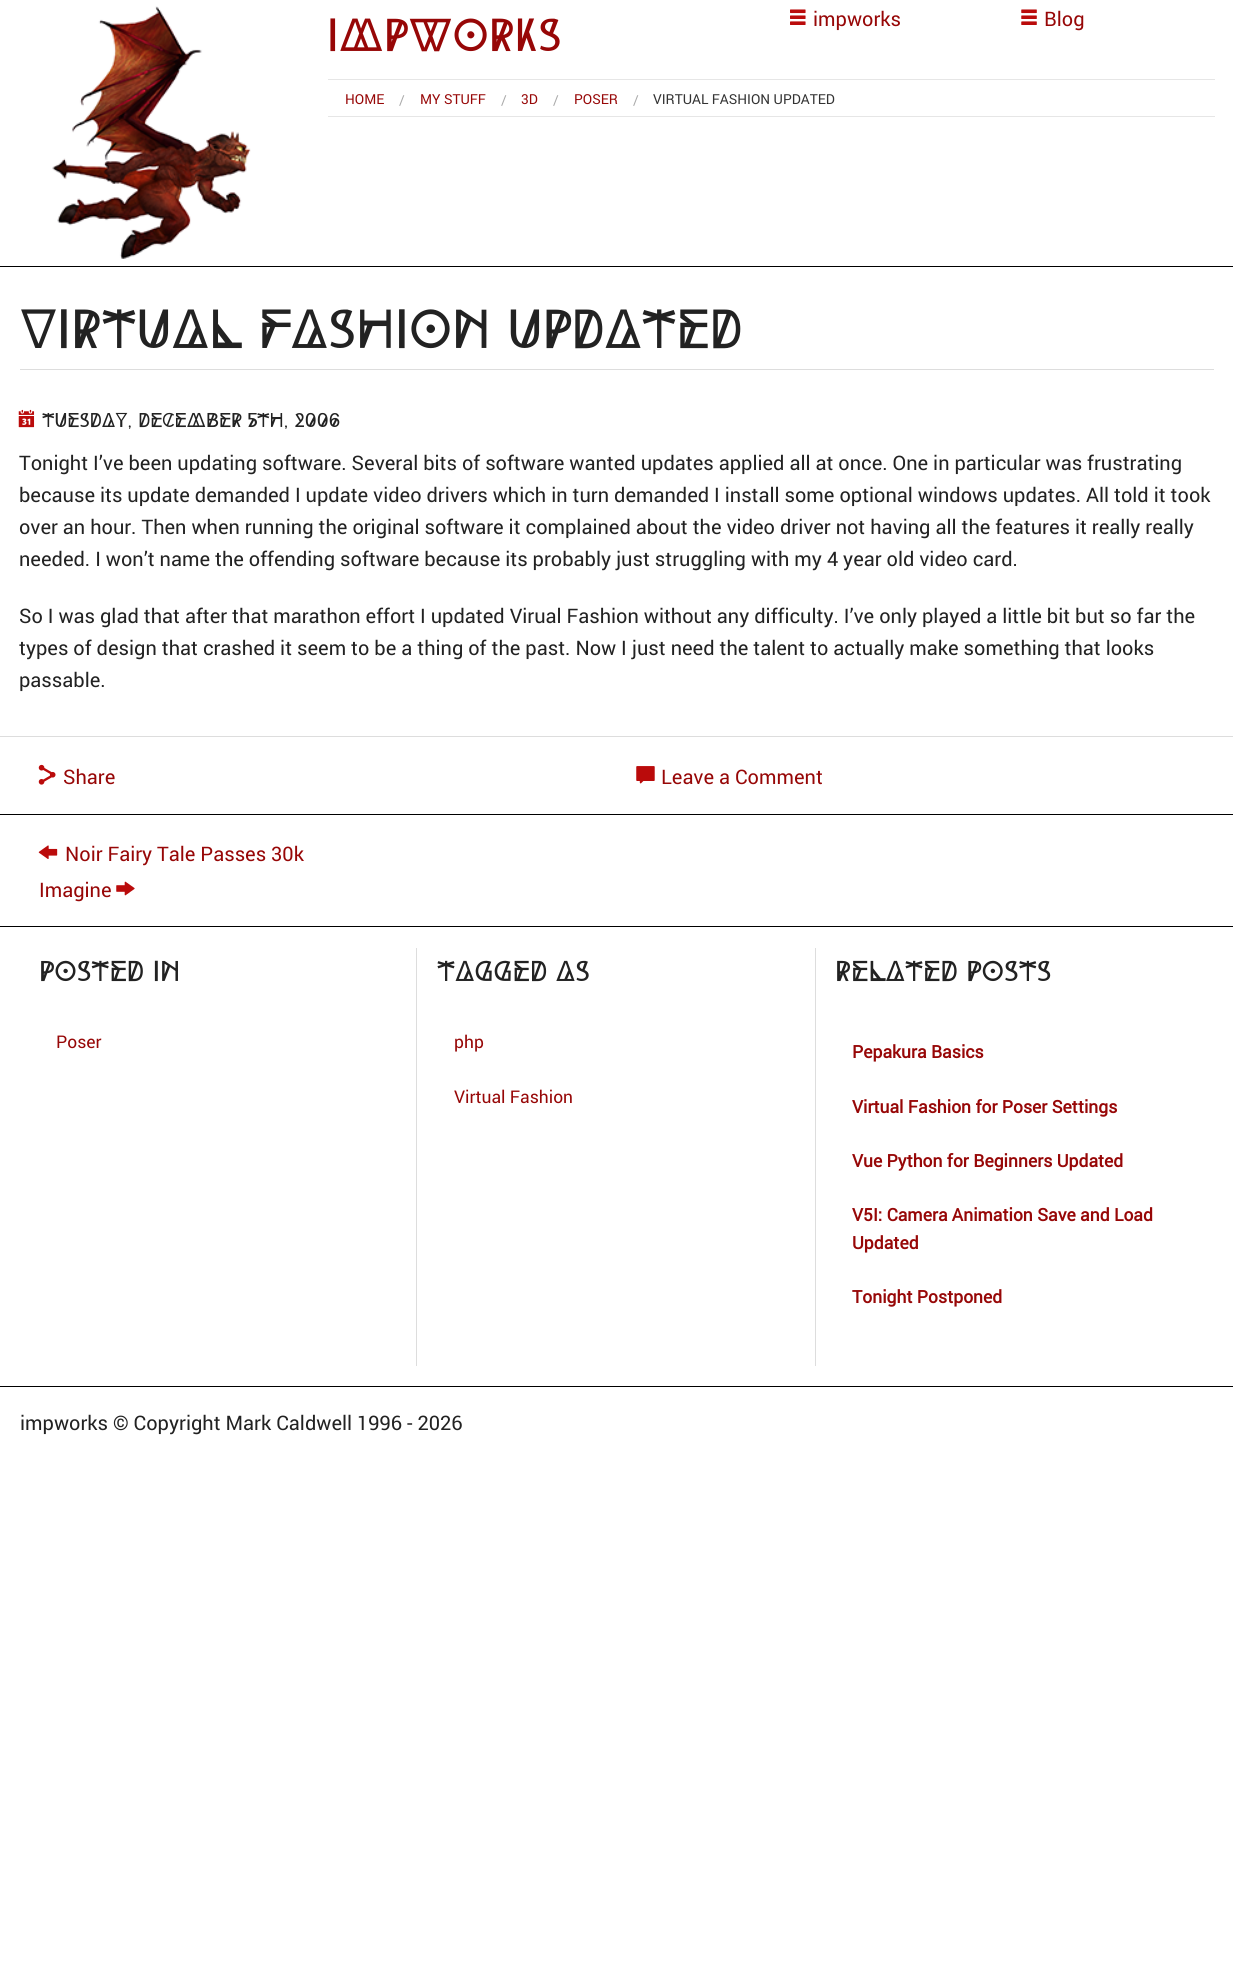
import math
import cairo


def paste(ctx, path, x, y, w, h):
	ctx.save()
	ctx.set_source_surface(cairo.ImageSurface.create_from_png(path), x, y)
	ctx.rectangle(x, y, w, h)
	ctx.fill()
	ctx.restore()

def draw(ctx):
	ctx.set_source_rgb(1, 1, 1)
	ctx.paint()
	paste(ctx, 'media/1.png', 52, 6, 199, 253)
	ctx.select_font_face('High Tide')
	ctx.set_font_size(46.25)
	ctx.set_source_rgb(0.592, 0.031, 0.031)
	ctx.move_to(327, 51)
	ctx.show_text('impworks')
	paste(ctx, 'media/2.png', 790, 9, 16, 16)
	ctx.select_font_face('roboto')
	ctx.set_font_size(20)
	ctx.move_to(813, 26)
	ctx.show_text('impworks')
	paste(ctx, 'media/3.png', 1021, 9, 16, 16)
	ctx.move_to(1044, 26)
	ctx.show_text('Blog')
	ctx.set_source_rgb(0.902, 0.902, 0.902)
	ctx.rectangle(328, 79, 887, 1)
	ctx.fill()
	ctx.rectangle(328, 116, 887, 1)
	ctx.fill()
	ctx.set_font_size(13.75)
	ctx.set_source_rgb(0.592, 0.031, 0.031)
	ctx.move_to(345, 104)
	ctx.show_text('HOME')
	ctx.set_source_rgb(0.667, 0.667, 0.667)
	ctx.move_to(399, 105)
	ctx.show_text('/')
	ctx.set_source_rgb(0.592, 0.031, 0.031)
	ctx.move_to(420, 104)
	ctx.show_text('MY STUFF')
	ctx.set_source_rgb(0.667, 0.667, 0.667)
	ctx.move_to(501, 105)
	ctx.show_text('/')
	ctx.set_source_rgb(0.592, 0.031, 0.031)
	ctx.move_to(521, 104)
	ctx.show_text('3D')
	ctx.set_source_rgb(0.667, 0.667, 0.667)
	ctx.move_to(553, 105)
	ctx.show_text('/')
	ctx.set_source_rgb(0.592, 0.031, 0.031)
	ctx.move_to(574, 104)
	ctx.show_text('POSER')
	ctx.set_source_rgb(0.667, 0.667, 0.667)
	ctx.move_to(633, 105)
	ctx.show_text('/')
	ctx.set_source_rgb(0.2, 0.2, 0.2)
	ctx.move_to(653, 104)
	ctx.show_text('VIRTUAL FASHION UPDATED')
	ctx.set_source_rgb(0, 0, 0)
	ctx.rectangle(0, 266, 1233, 1)
	ctx.fill()
	ctx.set_source_rgb(0.867, 0.867, 0.867)
	ctx.rectangle(20, 369, 1194, 1)
	ctx.fill()
	ctx.select_font_face('High Tide')
	ctx.set_font_size(55)
	ctx.set_source_rgb(0.133, 0.133, 0.133)
	ctx.move_to(20, 348)
	ctx.show_text('Virtual Fashion Updated')
	paste(ctx, 'media/4.png', 18, 409, 17, 19)
	ctx.set_font_size(20)
	ctx.move_to(42, 427)
	ctx.show_text('Tuesday, December 5th, 2006')
	ctx.select_font_face('roboto')
	for x, y, s in [
		(19, 470, 'Tonight I’ve been updating software. Several bits of software wanted updates applied all at once. One in particular was frustrating'),
		(19, 502, 'because its update demanded I update video drivers which in turn demanded I install some optional windows updates. All told it took'),
		(19, 534, 'over an hour. Then when running the original software it complained about the video driver not having all the features it really really'),
		(19, 566, 'needed. I won’t name the offending software because its probably just struggling with my 4 year old video card.'),
		(19, 623, 'So I was glad that after that marathon effort I updated Virual Fashion without any difficulty. I’ve only played a little bit but so far the'),
		(19, 655, 'types of design that crashed it seem to be a thing of the past. Now I just need the talent to actually make something that looks'),
		(19, 687, 'passable.'),
	]:
		ctx.move_to(x, y)
		ctx.show_text(s)
	ctx.set_source_rgb(0.867, 0.867, 0.867)
	ctx.rectangle(0, 736, 1233, 1)
	ctx.fill()
	paste(ctx, 'media/5.png', 38, 764, 18, 21)
	ctx.set_source_rgb(0.592, 0.031, 0.031)
	ctx.move_to(63, 784)
	ctx.show_text('Share')
	paste(ctx, 'media/6.png', 636, 766, 19, 18)
	ctx.move_to(661, 784)
	ctx.show_text('Leave a Comment')
	ctx.set_source_rgb(0, 0, 0)
	ctx.rectangle(0, 814, 1233, 1)
	ctx.fill()
	paste(ctx, 'media/7.png', 38, 845, 20, 14)
	ctx.set_source_rgb(0.592, 0.031, 0.031)
	ctx.move_to(65, 861)
	ctx.show_text('Noir Fairy Tale Passes 30k')
	ctx.move_to(39, 897)
	ctx.show_text('Imagine')
	paste(ctx, 'media/8.png', 116, 881, 19, 15)
	ctx.set_source_rgb(0, 0, 0)
	ctx.rectangle(0, 926, 1233, 1)
	ctx.fill()
	ctx.set_source_rgb(0.867, 0.867, 0.867)
	ctx.rectangle(416, 948, 1, 418)
	ctx.fill()
	ctx.select_font_face('High Tide')
	ctx.set_font_size(28.75)
	ctx.set_source_rgb(0.133, 0.133, 0.133)
	ctx.move_to(39, 981)
	ctx.show_text('Posted in')
	ctx.select_font_face('roboto')
	ctx.set_font_size(17.5)
	ctx.set_source_rgb(0.592, 0.031, 0.031)
	ctx.move_to(56, 1048)
	ctx.show_text('Poser')
	ctx.set_source_rgb(0.867, 0.867, 0.867)
	ctx.rectangle(815, 948, 1, 418)
	ctx.fill()
	ctx.select_font_face('High Tide')
	ctx.set_font_size(28.75)
	ctx.set_source_rgb(0.133, 0.133, 0.133)
	ctx.move_to(437, 981)
	ctx.show_text('Tagged as')
	ctx.select_font_face('roboto')
	ctx.set_font_size(17.5)
	ctx.set_source_rgb(0.592, 0.031, 0.031)
	ctx.move_to(454, 1048)
	ctx.show_text('php')
	ctx.move_to(454, 1103)
	ctx.show_text('Virtual Fashion')
	ctx.select_font_face('High Tide')
	ctx.set_font_size(28.75)
	ctx.set_source_rgb(0.133, 0.133, 0.133)
	ctx.move_to(835, 981)
	ctx.show_text('Related Posts')
	ctx.select_font_face('roboto', cairo.FONT_SLANT_NORMAL, cairo.FONT_WEIGHT_BOLD)
	ctx.set_font_size(17.5)
	ctx.set_source_rgb(0.592, 0.031, 0.031)
	for x, y, s in [
		(852, 1058, 'Pepakura Basics'),
		(852, 1113, 'Virtual Fashion for Poser Settings'),
		(852, 1167, 'Vue Python for Beginners Updated'),
		(852, 1221, 'V5I: Camera Animation Save and Load'),
		(852, 1249, 'Updated'),
		(852, 1303, 'Tonight Postponed'),
	]:
		ctx.move_to(x, y)
		ctx.show_text(s)
	ctx.set_source_rgb(0, 0, 0)
	ctx.rectangle(0, 1386, 1233, 1)
	ctx.fill()
	ctx.select_font_face('roboto')
	ctx.set_font_size(20)
	ctx.set_source_rgb(0.133, 0.133, 0.133)
	ctx.move_to(20, 1430)
	ctx.show_text('impworks © Copyright Mark Caldwell 1996 - 2026')


surface = cairo.ImageSurface(cairo.FORMAT_RGB24, 1233, 1974)
ctx = cairo.Context(surface)
options = cairo.FontOptions()
options.set_hint_metrics(cairo.HINT_METRICS_OFF)
options.set_hint_style(cairo.HINT_STYLE_NONE)
ctx.set_font_options(options)
ctx.set_miter_limit(4)
draw(ctx)
surface.write_to_png('image.png')
